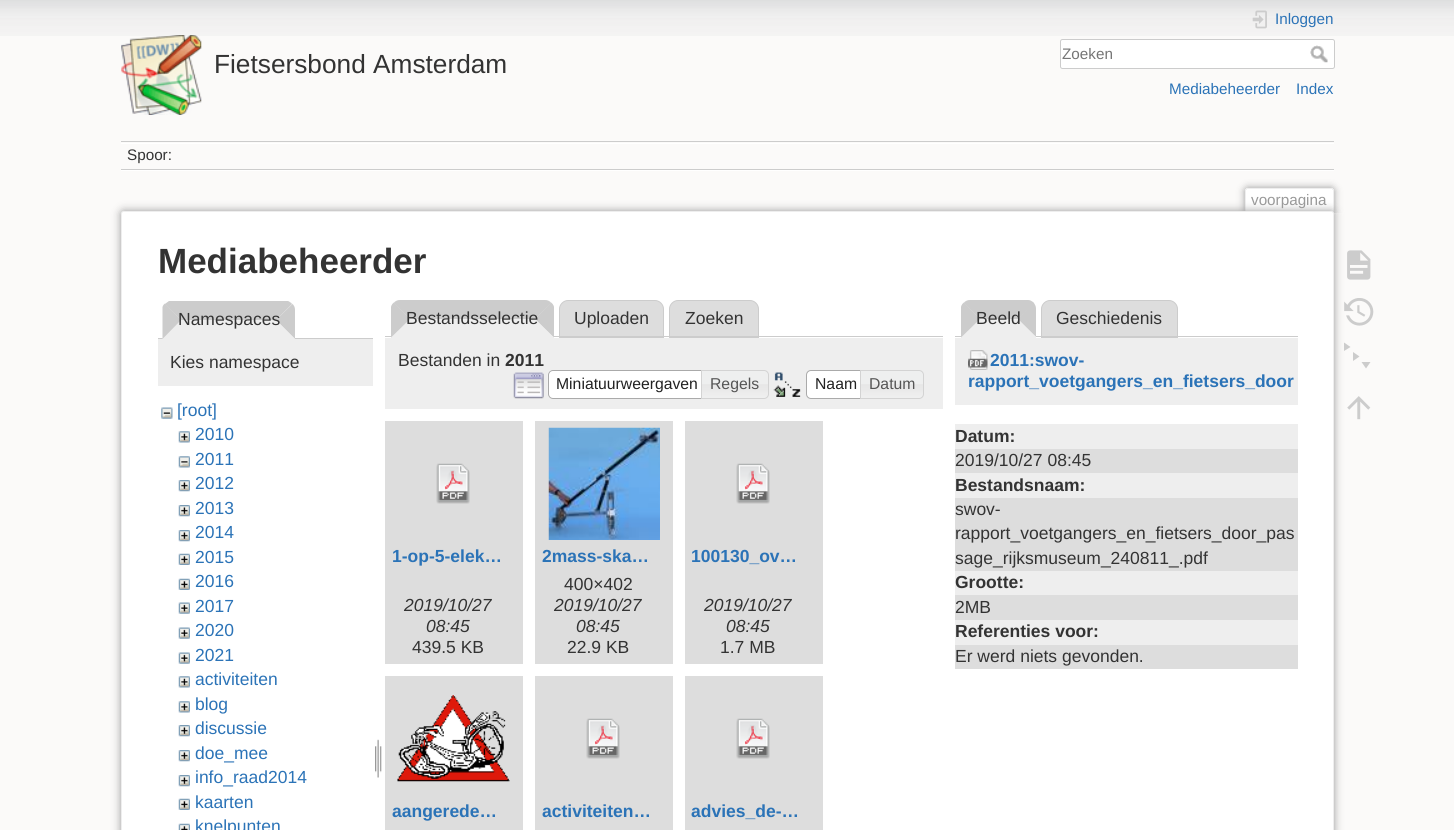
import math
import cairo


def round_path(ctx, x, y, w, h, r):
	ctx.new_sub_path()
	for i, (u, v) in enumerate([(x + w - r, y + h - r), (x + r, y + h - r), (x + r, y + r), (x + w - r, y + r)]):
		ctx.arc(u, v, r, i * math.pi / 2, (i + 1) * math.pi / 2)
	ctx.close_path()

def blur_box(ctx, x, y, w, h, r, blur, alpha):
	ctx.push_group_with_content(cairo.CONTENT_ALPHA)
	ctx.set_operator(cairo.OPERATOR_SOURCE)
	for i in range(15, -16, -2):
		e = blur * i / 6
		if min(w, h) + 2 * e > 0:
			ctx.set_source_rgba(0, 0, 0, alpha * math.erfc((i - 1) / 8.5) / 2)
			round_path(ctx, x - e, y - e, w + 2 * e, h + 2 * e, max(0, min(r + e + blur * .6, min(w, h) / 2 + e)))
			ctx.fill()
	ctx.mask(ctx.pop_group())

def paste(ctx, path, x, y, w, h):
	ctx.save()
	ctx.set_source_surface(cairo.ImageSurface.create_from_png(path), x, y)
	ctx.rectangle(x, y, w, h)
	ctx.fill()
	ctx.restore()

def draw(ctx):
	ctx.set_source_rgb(0.984, 0.98, 0.976)
	ctx.paint()
	paste(ctx, 'media/1.png', 0, 0, 1454, 36)
	paste(ctx, 'media/2.png', 121, 35, 81, 80)
	ctx.select_font_face('Liberation Sans')
	ctx.set_font_size(26.25)
	ctx.set_source_rgb(0.2, 0.2, 0.2)
	ctx.move_to(214, 73)
	ctx.show_text('Fietsersbond Amsterdam')
	paste(ctx, 'media/3.png', 1252, 10, 15, 19)
	ctx.set_font_size(15.25)
	ctx.set_source_rgb(0.169, 0.451, 0.718)
	ctx.move_to(1275, 24)
	ctx.show_text('Inloggen')
	ctx.set_source_rgb(1, 1, 1)
	round_path(ctx, 1060.5, 39.5, 274, 29, 2)
	ctx.fill_preserve()
	ctx.set_source_rgb(0.8, 0.8, 0.8)
	ctx.set_line_width(1)
	ctx.stroke()
	ctx.set_source_rgb(0.459, 0.459, 0.459)
	ctx.move_to(1062, 59)
	ctx.show_text('Zoeken')
	paste(ctx, 'media/4.png', 1310, 45, 18, 18)
	ctx.set_source_rgb(0.169, 0.451, 0.718)
	ctx.move_to(1169, 94)
	ctx.show_text('Mediabeheerder')
	ctx.move_to(1296, 94)
	ctx.show_text('Index')
	ctx.set_source_rgb(0.8, 0.8, 0.8)
	ctx.rectangle(121, 141, 1213, 1)
	ctx.fill()
	ctx.set_source_rgb(1, 1, 1)
	ctx.rectangle(121, 170, 1213, 1)
	ctx.rectangle(121, 143, 1213, 1)
	ctx.fill()
	ctx.set_source_rgb(0.8, 0.8, 0.8)
	ctx.rectangle(121, 169, 1213, 1)
	ctx.fill()
	ctx.set_source_rgb(0.2, 0.2, 0.2)
	ctx.move_to(127, 160)
	ctx.show_text('Spoor:')
	ctx.save()
	ctx.rectangle(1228, 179, 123, 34)
	ctx.clip()
	ctx.set_source_rgb(0.6, 0.6, 0.6)
	blur_box(ctx, 1245, 188, 89, 25, 2.5, 4, 1)
	ctx.restore()
	ctx.set_source_rgb(1, 1, 1)
	ctx.new_path()
	ctx.move_to(1247, 189)
	ctx.line_to(1332, 189)
	ctx.curve_to(1332.5, 189, 1333, 189.5, 1333, 190)
	ctx.line_to(1333, 213)
	ctx.line_to(1246, 213)
	ctx.line_to(1246, 190)
	ctx.curve_to(1246, 189.5, 1246.5, 189, 1247, 189)
	ctx.close_path()
	ctx.fill()
	ctx.set_source_rgb(0.933, 0.933, 0.933)
	ctx.rectangle(1246, 188, 87, 1)
	ctx.rectangle(1333, 189, 1, 24)
	ctx.rectangle(1245, 189, 1, 24)
	ctx.fill()
	ctx.set_source_rgb(0.6, 0.6, 0.6)
	ctx.move_to(1251, 205)
	ctx.show_text('voorpagina')
	ctx.set_source_rgb(0.6, 0.6, 0.6)
	blur_box(ctx, 121, 211, 1213, 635, 2.5, 4.5, 1)
	ctx.set_source_rgb(1, 1, 1)
	round_path(ctx, 121.5, 211.5, 1212, 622, 2)
	ctx.fill_preserve()
	ctx.set_source_rgb(0.933, 0.933, 0.933)
	ctx.stroke()
	ctx.select_font_face('Liberation Sans', cairo.FONT_SLANT_NORMAL, cairo.FONT_WEIGHT_BOLD)
	ctx.set_font_size(35)
	ctx.set_source_rgb(0.2, 0.2, 0.2)
	ctx.move_to(158, 273)
	ctx.show_text('Mediabeheerder')
	ctx.set_source_rgb(0.8, 0.8, 0.8)
	ctx.rectangle(158, 338, 215, 1)
	ctx.fill()
	ctx.set_source_rgb(0.933, 0.933, 0.933)
	ctx.new_path()
	ctx.move_to(172, 301)
	ctx.line_to(286, 301)
	ctx.curve_to(291, 301, 295, 305, 295, 310)
	ctx.line_to(295, 339)
	ctx.line_to(163, 339)
	ctx.line_to(163, 310)
	ctx.curve_to(163, 305, 167, 301, 172, 301)
	ctx.close_path()
	ctx.fill()
	ctx.set_source_rgb(0.8, 0.8, 0.8)
	ctx.new_path()
	ctx.move_to(288, 301)
	ctx.line_to(169, 301)
	ctx.line_to(165, 304)
	ctx.line_to(181, 320)
	ctx.line_to(276, 320)
	ctx.line_to(292, 304)
	ctx.curve_to(291, 303, 290, 302, 288, 301)
	ctx.close_path()
	ctx.fill()
	ctx.new_path()
	ctx.move_to(292.5, 304)
	ctx.line_to(276, 320)
	ctx.line_to(295, 339)
	ctx.line_to(295, 310)
	ctx.curve_to(295, 307.5, 294, 305.5, 292.5, 304)
	ctx.close_path()
	ctx.fill()
	ctx.set_source_rgb(0.933, 0.933, 0.933)
	ctx.new_path()
	ctx.move_to(295, 339)
	ctx.line_to(276, 320)
	ctx.line_to(181, 320)
	ctx.line_to(162, 339)
	ctx.close_path()
	ctx.fill()
	ctx.set_source_rgb(0.8, 0.8, 0.8)
	ctx.new_path()
	ctx.move_to(162.5, 339)
	ctx.line_to(181, 320)
	ctx.line_to(165, 303.5)
	ctx.curve_to(163.5, 304.5, 163, 305.5, 162.5, 307)
	ctx.close_path()
	ctx.fill()
	ctx.select_font_face('Liberation Sans')
	ctx.set_font_size(17.5)
	ctx.set_source_rgb(0.2, 0.2, 0.2)
	ctx.move_to(178, 325)
	ctx.show_text('Namespaces')
	ctx.set_source_rgb(0.933, 0.933, 0.933)
	ctx.rectangle(158, 339, 215, 47)
	ctx.fill()
	ctx.set_source_rgb(0.2, 0.2, 0.2)
	ctx.move_to(170, 368)
	ctx.show_text('Kies namespace')
	paste(ctx, 'media/5.png', 161, 407, 12, 12)
	ctx.set_source_rgb(0.169, 0.451, 0.718)
	ctx.move_to(177, 416)
	ctx.show_text('[root]')
	paste(ctx, 'media/6.png', 178, 431, 12, 12)
	ctx.move_to(195, 440)
	ctx.show_text('2010')
	paste(ctx, 'media/7.png', 178, 456, 12, 12)
	ctx.move_to(195, 465)
	ctx.show_text('2011')
	paste(ctx, 'media/8.png', 178, 480, 12, 12)
	ctx.move_to(195, 489)
	ctx.show_text('2012')
	paste(ctx, 'media/8.png', 178, 505, 12, 12)
	ctx.move_to(195, 514)
	ctx.show_text('2013')
	paste(ctx, 'media/8.png', 178, 530, 12, 12)
	ctx.move_to(195, 538)
	ctx.show_text('2014')
	paste(ctx, 'media/9.png', 178, 553, 12, 12)
	ctx.move_to(195, 563)
	ctx.show_text('2015')
	paste(ctx, 'media/9.png', 178, 578, 12, 12)
	ctx.move_to(195, 587)
	ctx.show_text('2016')
	paste(ctx, 'media/10.png', 178, 602, 12, 12)
	ctx.move_to(195, 612)
	ctx.show_text('2017')
	paste(ctx, 'media/10.png', 178, 627, 12, 12)
	ctx.move_to(195, 636)
	ctx.show_text('2020')
	paste(ctx, 'media/10.png', 178, 652, 12, 12)
	ctx.move_to(195, 661)
	ctx.show_text('2021')
	paste(ctx, 'media/6.png', 178, 676, 12, 12)
	ctx.move_to(195, 685)
	ctx.show_text('activiteiten')
	paste(ctx, 'media/6.png', 178, 701, 12, 12)
	ctx.move_to(195, 710)
	ctx.show_text('blog')
	paste(ctx, 'media/8.png', 178, 725, 12, 12)
	ctx.move_to(195, 734)
	ctx.show_text('discussie')
	paste(ctx, 'media/8.png', 178, 750, 12, 12)
	ctx.move_to(195, 759)
	ctx.show_text('doe_mee')
	paste(ctx, 'media/11.png', 178, 775, 12, 12)
	ctx.move_to(195, 783)
	ctx.show_text('info_raad2014')
	paste(ctx, 'media/9.png', 178, 798, 12, 12)
	ctx.move_to(195, 808)
	ctx.show_text('kaarten')
	paste(ctx, 'media/12.png', 178, 823, 12, 7)
	ctx.move_to(195, 832)
	ctx.show_text('knelpunten')
	paste(ctx, 'media/13.png', 375, 739, 7, 39)
	ctx.set_source_rgb(0.867, 0.867, 0.867)
	ctx.new_path()
	ctx.move_to(568, 300.5)
	ctx.line_to(655, 300.5)
	ctx.curve_to(659.5, 300.5, 663.5, 304.5, 663.5, 309)
	ctx.line_to(663.5, 337.5)
	ctx.line_to(559.5, 337.5)
	ctx.line_to(559.5, 309)
	ctx.curve_to(559.5, 304.5, 563.5, 300.5, 568, 300.5)
	ctx.close_path()
	ctx.fill_preserve()
	ctx.set_source_rgb(0.8, 0.8, 0.8)
	ctx.stroke()
	ctx.set_source_rgb(0.867, 0.867, 0.867)
	ctx.new_path()
	ctx.move_to(678, 300.5)
	ctx.line_to(750, 300.5)
	ctx.curve_to(754.5, 300.5, 758.5, 304.5, 758.5, 309)
	ctx.line_to(758.5, 337.5)
	ctx.line_to(669.5, 337.5)
	ctx.line_to(669.5, 309)
	ctx.curve_to(669.5, 304.5, 673.5, 300.5, 678, 300.5)
	ctx.close_path()
	ctx.fill_preserve()
	ctx.set_source_rgb(0.8, 0.8, 0.8)
	ctx.stroke()
	ctx.rectangle(385, 336, 558, 1)
	ctx.fill()
	ctx.set_source_rgb(0.933, 0.933, 0.933)
	ctx.new_path()
	ctx.move_to(400, 300)
	ctx.line_to(545, 300)
	ctx.curve_to(550, 300, 554, 304, 554, 309)
	ctx.line_to(554, 338)
	ctx.line_to(391, 338)
	ctx.line_to(391, 309)
	ctx.curve_to(391, 304, 395, 300, 400, 300)
	ctx.close_path()
	ctx.fill()
	ctx.set_source_rgb(0.8, 0.8, 0.8)
	ctx.new_path()
	ctx.move_to(400, 300)
	ctx.line_to(545, 300)
	ctx.curve_to(547, 300, 550, 301, 551, 303)
	ctx.line_to(535, 319)
	ctx.line_to(410, 319)
	ctx.line_to(394, 303)
	ctx.curve_to(395, 301, 398, 300, 400, 300)
	ctx.close_path()
	ctx.fill()
	ctx.new_path()
	ctx.move_to(551, 302.5)
	ctx.line_to(535, 319)
	ctx.line_to(554, 337.5)
	ctx.line_to(554, 307)
	ctx.curve_to(553.5, 305, 552.5, 303.5, 551, 302.5)
	ctx.close_path()
	ctx.fill()
	ctx.set_source_rgb(0.933, 0.933, 0.933)
	ctx.new_path()
	ctx.move_to(554, 338)
	ctx.line_to(535, 319)
	ctx.line_to(410, 319)
	ctx.line_to(391, 338)
	ctx.close_path()
	ctx.fill()
	ctx.set_source_rgb(0.8, 0.8, 0.8)
	ctx.new_path()
	ctx.move_to(391, 337.5)
	ctx.line_to(410, 319)
	ctx.line_to(394, 302.5)
	ctx.curve_to(392.5, 303.5, 391.5, 305, 391, 307)
	ctx.close_path()
	ctx.fill()
	ctx.set_source_rgb(0.2, 0.2, 0.2)
	for x, y, s in [
		(406, 324, 'Bestandsselectie'),
		(574, 324, 'Uploaden'),
		(685, 324, 'Zoeken'),
	]:
		ctx.move_to(x, y)
		ctx.show_text(s)
	ctx.set_source_rgb(0.933, 0.933, 0.933)
	ctx.rectangle(385, 338, 558, 71)
	ctx.fill()
	ctx.set_source_rgb(0.2, 0.2, 0.2)
	ctx.move_to(398, 366)
	ctx.show_text('Bestanden in')
	ctx.select_font_face('Liberation Sans', cairo.FONT_SLANT_NORMAL, cairo.FONT_WEIGHT_BOLD)
	ctx.move_to(505, 366)
	ctx.show_text('2011')
	paste(ctx, 'media/14.png', 513, 372, 31, 27)
	ctx.set_source_rgb(1, 1, 1)
	ctx.new_path()
	ctx.move_to(553, 370)
	ctx.line_to(708, 370)
	ctx.line_to(708, 399)
	ctx.line_to(553, 399)
	ctx.curve_to(550, 399, 548, 397, 548, 394)
	ctx.line_to(548, 375)
	ctx.curve_to(548, 372, 550, 370, 553, 370)
	ctx.close_path()
	ctx.fill()
	paste(ctx, 'media/15.png', 547, 370, 4, 28)
	ctx.new_path()
	ctx.move_to(553, 370.5)
	ctx.line_to(707.5, 370.5)
	ctx.line_to(707.5, 398.5)
	ctx.line_to(553, 398.5)
	ctx.curve_to(550.5, 398.5, 548.5, 396.5, 548.5, 394)
	ctx.line_to(548.5, 375)
	ctx.curve_to(548.5, 372.5, 550.5, 370.5, 553, 370.5)
	ctx.close_path()
	ctx.set_source_rgb(0.667, 0.667, 0.667)
	ctx.stroke()
	ctx.select_font_face('Liberation Sans')
	ctx.set_font_size(15.75)
	ctx.set_source_rgb(0.129, 0.129, 0.129)
	ctx.move_to(556, 389)
	ctx.show_text('Miniatuurweergaven')
	paste(ctx, 'media/16.png', 702, 370, 67, 29)
	ctx.new_path()
	ctx.move_to(701.5, 370.5)
	ctx.line_to(764, 370.5)
	ctx.curve_to(766.5, 370.5, 768.5, 372.5, 768.5, 375)
	ctx.line_to(768.5, 394)
	ctx.curve_to(768.5, 396.5, 766.5, 398.5, 764, 398.5)
	ctx.line_to(701.5, 398.5)
	ctx.close_path()
	ctx.set_source_rgb(0.827, 0.827, 0.827)
	ctx.stroke()
	ctx.set_source_rgb(0.333, 0.333, 0.333)
	ctx.move_to(710, 389)
	ctx.show_text('Regels')
	paste(ctx, 'media/17.png', 773, 372, 28, 25)
	ctx.set_source_rgb(1, 1, 1)
	ctx.new_path()
	ctx.move_to(811, 370.5)
	ctx.line_to(865.5, 370.5)
	ctx.line_to(865.5, 398.5)
	ctx.line_to(811, 398.5)
	ctx.curve_to(808.5, 398.5, 806.5, 396.5, 806.5, 394)
	ctx.line_to(806.5, 375)
	ctx.curve_to(806.5, 372.5, 808.5, 370.5, 811, 370.5)
	ctx.close_path()
	ctx.fill_preserve()
	ctx.set_source_rgb(0.667, 0.667, 0.667)
	ctx.stroke()
	ctx.set_source_rgb(0.129, 0.129, 0.129)
	ctx.move_to(815, 389)
	ctx.show_text('Naam')
	paste(ctx, 'media/18.png', 861, 370, 63, 29)
	ctx.new_path()
	ctx.move_to(860.5, 370.5)
	ctx.line_to(919, 370.5)
	ctx.curve_to(921.5, 370.5, 923.5, 372.5, 923.5, 375)
	ctx.line_to(923.5, 394)
	ctx.curve_to(923.5, 396.5, 921.5, 398.5, 919, 398.5)
	ctx.line_to(860.5, 398.5)
	ctx.close_path()
	ctx.set_source_rgb(0.827, 0.827, 0.827)
	ctx.stroke()
	ctx.set_source_rgb(0.333, 0.333, 0.333)
	ctx.move_to(869, 389)
	ctx.show_text('Datum')
	ctx.set_source_rgb(0.867, 0.867, 0.867)
	ctx.rectangle(385, 421, 138, 243)
	ctx.fill()
	paste(ctx, 'media/19.png', 436, 463, 34, 41)
	ctx.select_font_face('Liberation Sans', cairo.FONT_SLANT_NORMAL, cairo.FONT_WEIGHT_BOLD)
	ctx.set_font_size(17.5)
	ctx.set_source_rgb(0.169, 0.451, 0.718)
	ctx.move_to(392, 562)
	ctx.show_text('1-op-5-elek…')
	ctx.select_font_face('Liberation Sans', cairo.FONT_SLANT_ITALIC)
	ctx.set_source_rgb(0.2, 0.2, 0.2)
	ctx.move_to(404, 611)
	ctx.show_text('2019/10/27')
	ctx.move_to(426, 632)
	ctx.show_text('08:45')
	ctx.select_font_face('Liberation Sans')
	ctx.move_to(412, 653)
	ctx.show_text('439.5 KB')
	ctx.set_source_rgb(0.867, 0.867, 0.867)
	ctx.rectangle(535, 421, 138, 243)
	ctx.fill()
	paste(ctx, 'media/20.png', 548, 427, 112, 113)
	ctx.select_font_face('Liberation Sans', cairo.FONT_SLANT_NORMAL, cairo.FONT_WEIGHT_BOLD)
	ctx.set_source_rgb(0.169, 0.451, 0.718)
	ctx.move_to(542, 562)
	ctx.show_text('2mass-ska…')
	ctx.select_font_face('Liberation Sans')
	ctx.set_source_rgb(0.2, 0.2, 0.2)
	ctx.move_to(564, 590)
	ctx.show_text('400×402')
	ctx.select_font_face('Liberation Sans', cairo.FONT_SLANT_ITALIC)
	ctx.move_to(554, 611)
	ctx.show_text('2019/10/27')
	ctx.move_to(576, 632)
	ctx.show_text('08:45')
	ctx.select_font_face('Liberation Sans')
	ctx.move_to(567, 653)
	ctx.show_text('22.9 KB')
	ctx.set_source_rgb(0.867, 0.867, 0.867)
	ctx.rectangle(685, 421, 138, 243)
	ctx.fill()
	paste(ctx, 'media/21.png', 736, 463, 34, 41)
	ctx.select_font_face('Liberation Sans', cairo.FONT_SLANT_NORMAL, cairo.FONT_WEIGHT_BOLD)
	ctx.set_source_rgb(0.169, 0.451, 0.718)
	ctx.move_to(691, 562)
	ctx.show_text('100130_ov…')
	ctx.select_font_face('Liberation Sans', cairo.FONT_SLANT_ITALIC)
	ctx.set_source_rgb(0.2, 0.2, 0.2)
	ctx.move_to(704, 611)
	ctx.show_text('2019/10/27')
	ctx.move_to(726, 632)
	ctx.show_text('08:45')
	ctx.select_font_face('Liberation Sans')
	ctx.move_to(720, 653)
	ctx.show_text('1.7 MB')
	ctx.set_source_rgb(0.867, 0.867, 0.867)
	ctx.rectangle(385, 676, 138, 154)
	ctx.fill()
	paste(ctx, 'media/22.png', 397, 695, 113, 87)
	ctx.select_font_face('Liberation Sans', cairo.FONT_SLANT_NORMAL, cairo.FONT_WEIGHT_BOLD)
	ctx.set_source_rgb(0.169, 0.451, 0.718)
	ctx.move_to(392, 817)
	ctx.show_text('aangerede…')
	ctx.set_source_rgb(0.867, 0.867, 0.867)
	ctx.rectangle(535, 676, 138, 154)
	ctx.fill()
	paste(ctx, 'media/23.png', 586, 718, 34, 41)
	ctx.set_source_rgb(0.169, 0.451, 0.718)
	ctx.move_to(542, 817)
	ctx.show_text('activiteiten…')
	ctx.set_source_rgb(0.867, 0.867, 0.867)
	ctx.rectangle(685, 676, 138, 154)
	ctx.fill()
	paste(ctx, 'media/21.png', 736, 718, 34, 41)
	ctx.set_source_rgb(0.169, 0.451, 0.718)
	ctx.move_to(691, 817)
	ctx.show_text('advies_de-…')
	ctx.set_source_rgb(0.867, 0.867, 0.867)
	ctx.new_path()
	ctx.move_to(1050, 300.5)
	ctx.line_to(1169, 300.5)
	ctx.curve_to(1173.5, 300.5, 1177.5, 304.5, 1177.5, 309)
	ctx.line_to(1177.5, 337.5)
	ctx.line_to(1041.5, 337.5)
	ctx.line_to(1041.5, 309)
	ctx.curve_to(1041.5, 304.5, 1045.5, 300.5, 1050, 300.5)
	ctx.close_path()
	ctx.fill_preserve()
	ctx.set_source_rgb(0.8, 0.8, 0.8)
	ctx.stroke()
	ctx.rectangle(955, 336, 343, 1)
	ctx.fill()
	ctx.set_source_rgb(0.933, 0.933, 0.933)
	ctx.new_path()
	ctx.move_to(970, 300)
	ctx.line_to(1027, 300)
	ctx.curve_to(1032, 300, 1036, 304, 1036, 309)
	ctx.line_to(1036, 338)
	ctx.line_to(961, 338)
	ctx.line_to(961, 309)
	ctx.curve_to(961, 304, 965, 300, 970, 300)
	ctx.close_path()
	ctx.fill()
	ctx.set_source_rgb(0.8, 0.8, 0.8)
	ctx.new_path()
	ctx.move_to(970, 300)
	ctx.line_to(1028, 300)
	ctx.curve_to(1030, 300, 1032, 301, 1034, 303)
	ctx.line_to(1018, 319)
	ctx.line_to(980, 319)
	ctx.line_to(964, 303)
	ctx.curve_to(965, 301, 968, 300, 970, 300)
	ctx.close_path()
	ctx.fill()
	ctx.new_path()
	ctx.move_to(1033.5, 302.5)
	ctx.line_to(1017.5, 319)
	ctx.line_to(1036, 337)
	ctx.line_to(1036, 309)
	ctx.curve_to(1036, 306.5, 1035, 304.5, 1033.5, 302.5)
	ctx.close_path()
	ctx.fill()
	ctx.set_source_rgb(0.933, 0.933, 0.933)
	ctx.new_path()
	ctx.move_to(1036, 337)
	ctx.line_to(1018, 319)
	ctx.line_to(980, 319)
	ctx.line_to(961, 338)
	ctx.close_path()
	ctx.fill()
	ctx.set_source_rgb(0.8, 0.8, 0.8)
	ctx.new_path()
	ctx.move_to(961, 337.5)
	ctx.line_to(980, 319)
	ctx.line_to(964, 302.5)
	ctx.curve_to(962.5, 303.5, 961.5, 305, 961, 307)
	ctx.close_path()
	ctx.fill()
	ctx.select_font_face('Liberation Sans')
	ctx.set_source_rgb(0.2, 0.2, 0.2)
	ctx.move_to(976, 324)
	ctx.show_text('Beeld')
	ctx.move_to(1056, 324)
	ctx.show_text('Geschiedenis')
	ctx.set_source_rgb(0.933, 0.933, 0.933)
	ctx.rectangle(955, 338, 343, 67)
	ctx.fill()
	paste(ctx, 'media/24.png', 968, 350, 20, 20)
	ctx.select_font_face('Liberation Sans', cairo.FONT_SLANT_NORMAL, cairo.FONT_WEIGHT_BOLD)
	ctx.set_source_rgb(0.169, 0.451, 0.718)
	ctx.move_to(990, 366)
	ctx.show_text('2011:swov-')
	ctx.move_to(968, 387)
	ctx.show_text('rapport_voetgangers_en_fietsers_door')
	ctx.set_source_rgb(0.933, 0.933, 0.933)
	ctx.rectangle(955, 424, 343, 25)
	ctx.fill()
	ctx.set_source_rgb(0.2, 0.2, 0.2)
	ctx.move_to(955, 442)
	ctx.show_text('Datum:')
	ctx.set_source_rgb(0.867, 0.867, 0.867)
	ctx.rectangle(955, 449, 343, 24)
	ctx.fill()
	ctx.select_font_face('Liberation Sans')
	ctx.set_source_rgb(0.2, 0.2, 0.2)
	ctx.move_to(955, 466)
	ctx.show_text('2019/10/27 08:45')
	ctx.set_source_rgb(0.933, 0.933, 0.933)
	ctx.rectangle(955, 473, 343, 25)
	ctx.fill()
	ctx.select_font_face('Liberation Sans', cairo.FONT_SLANT_NORMAL, cairo.FONT_WEIGHT_BOLD)
	ctx.set_source_rgb(0.2, 0.2, 0.2)
	ctx.move_to(955, 491)
	ctx.show_text('Bestandsnaam:')
	ctx.set_source_rgb(0.867, 0.867, 0.867)
	ctx.rectangle(955, 498, 343, 73)
	ctx.fill()
	ctx.select_font_face('Liberation Sans')
	ctx.set_source_rgb(0.2, 0.2, 0.2)
	for x, y, s in [
		(955, 515, 'swov-'),
		(955, 539, 'rapport_voetgangers_en_fietsers_door_pas'),
		(955, 564, 'sage_rijksmuseum_240811_.pdf'),
	]:
		ctx.move_to(x, y)
		ctx.show_text(s)
	ctx.set_source_rgb(0.933, 0.933, 0.933)
	ctx.rectangle(955, 571, 343, 24)
	ctx.fill()
	ctx.select_font_face('Liberation Sans', cairo.FONT_SLANT_NORMAL, cairo.FONT_WEIGHT_BOLD)
	ctx.set_source_rgb(0.2, 0.2, 0.2)
	ctx.move_to(955, 588)
	ctx.show_text('Grootte:')
	ctx.set_source_rgb(0.867, 0.867, 0.867)
	ctx.rectangle(955, 595, 343, 25)
	ctx.fill()
	ctx.select_font_face('Liberation Sans')
	ctx.set_source_rgb(0.2, 0.2, 0.2)
	ctx.move_to(955, 613)
	ctx.show_text('2MB')
	ctx.set_source_rgb(0.933, 0.933, 0.933)
	ctx.rectangle(955, 620, 343, 25)
	ctx.fill()
	ctx.select_font_face('Liberation Sans', cairo.FONT_SLANT_NORMAL, cairo.FONT_WEIGHT_BOLD)
	ctx.set_source_rgb(0.2, 0.2, 0.2)
	ctx.move_to(955, 637)
	ctx.show_text('Referenties voor:')
	ctx.set_source_rgb(0.867, 0.867, 0.867)
	ctx.rectangle(955, 645, 343, 24)
	ctx.fill()
	ctx.select_font_face('Liberation Sans')
	ctx.set_source_rgb(0.2, 0.2, 0.2)
	ctx.move_to(955, 662)
	ctx.show_text('Er werd niets gevonden.')
	paste(ctx, 'media/25.png', 1347, 250, 24, 30)
	paste(ctx, 'media/26.png', 1344, 298, 30, 28)
	ctx.set_source_rgb(0.8, 0.8, 0.8)
	ctx.new_path()
	ctx.move_to(1344, 342.5)
	ctx.line_to(1350.5, 347)
	ctx.line_to(1344, 351)
	ctx.close_path()
	ctx.move_to(1353, 352)
	ctx.line_to(1359.5, 356.5)
	ctx.line_to(1353, 361)
	ctx.close_path()
	ctx.move_to(1361.5, 362)
	ctx.line_to(1370.5, 362)
	ctx.line_to(1366, 368.5)
	ctx.close_path()
	ctx.fill()
	paste(ctx, 'media/27.png', 1347, 396, 24, 24)


surface = cairo.ImageSurface(cairo.FORMAT_RGB24, 1454, 830)
ctx = cairo.Context(surface)
options = cairo.FontOptions()
options.set_hint_metrics(cairo.HINT_METRICS_OFF)
options.set_hint_style(cairo.HINT_STYLE_NONE)
ctx.set_font_options(options)
ctx.set_miter_limit(4)
draw(ctx)
surface.write_to_png('image.png')
